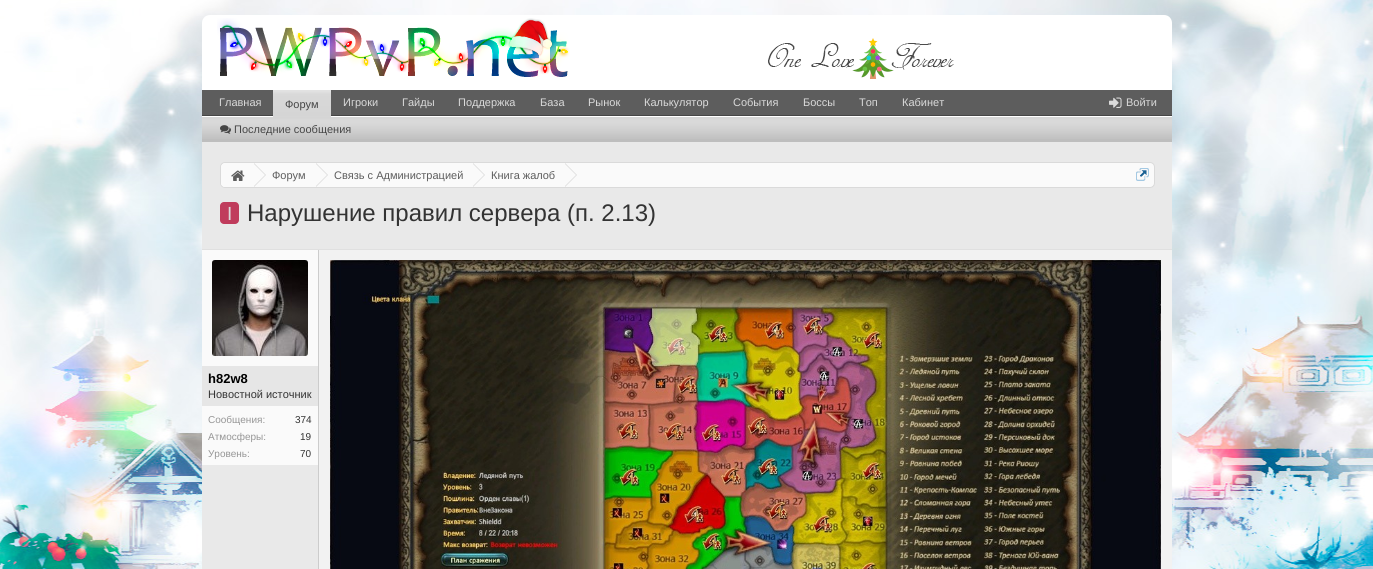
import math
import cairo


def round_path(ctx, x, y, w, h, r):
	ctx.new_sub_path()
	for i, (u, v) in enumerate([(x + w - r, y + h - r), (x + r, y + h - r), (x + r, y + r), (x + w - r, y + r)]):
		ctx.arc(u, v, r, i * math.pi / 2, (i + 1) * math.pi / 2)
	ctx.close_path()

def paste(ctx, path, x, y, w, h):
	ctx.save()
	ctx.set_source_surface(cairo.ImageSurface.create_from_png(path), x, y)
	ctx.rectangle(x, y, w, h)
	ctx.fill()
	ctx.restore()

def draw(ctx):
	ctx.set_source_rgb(1, 1, 1)
	ctx.paint()
	paste(ctx, 'media/1.png', 0, 0, 1373, 569)
	ctx.set_source_rgb(1, 1, 1)
	ctx.new_path()
	ctx.move_to(210, 15)
	ctx.line_to(1164, 15)
	ctx.curve_to(1168.5, 15, 1172, 18.5, 1172, 23)
	ctx.line_to(1172, 90)
	ctx.line_to(202, 90)
	ctx.line_to(202, 23)
	ctx.curve_to(202, 18.5, 205.5, 15, 210, 15)
	ctx.close_path()
	ctx.fill()
	paste(ctx, 'media/2.png', 217, 18, 353, 59)
	paste(ctx, 'media/3.png', 802, 38, 162, 41)
	paste(ctx, 'media/4.png', 768, 43, 196, 31)
	ctx.rectangle(202, 116, 970, 1)
	ctx.fill()
	ctx.set_source_rgb(0.365, 0.365, 0.365)
	ctx.rectangle(202, 90, 970, 25)
	ctx.fill()
	ctx.set_source_rgb(0.275, 0.275, 0.275)
	ctx.rectangle(202, 115, 970, 1)
	ctx.fill()
	ctx.select_font_face('Liberation Sans')
	ctx.set_font_size(11)
	ctx.set_source_rgb(0.855, 0.855, 0.855)
	for x, y, s in [
		(219, 106, 'Главная'),
		(343, 106, 'Игроки'),
		(402, 106, 'Гайды'),
		(458, 106, 'Поддержка'),
		(540, 106, 'База'),
		(588, 106, 'Рынок'),
		(644, 106, 'Калькулятор'),
		(733, 106, 'События'),
		(803, 106, 'Боссы'),
		(859, 106, 'Топ'),
		(902, 106, 'Кабинет'),
	]:
		ctx.move_to(x, y)
		ctx.show_text(s)
	ctx.set_source_rgb(0.745, 0.745, 0.745)
	ctx.rectangle(273, 90, 58, 27)
	ctx.fill()
	paste(ctx, 'media/5.png', 273, 90, 58, 27)
	ctx.set_source_rgb(0.275, 0.275, 0.275)
	ctx.move_to(285, 108)
	ctx.show_text('Форум')
	ctx.set_source_rgb(0.745, 0.745, 0.745)
	ctx.rectangle(202, 117, 970, 25)
	ctx.fill()
	paste(ctx, 'media/6.png', 202, 117, 970, 22)
	paste(ctx, 'media/7.png', 220, 125, 11, 9)
	ctx.set_source_rgb(0.275, 0.275, 0.275)
	ctx.move_to(234, 133)
	ctx.show_text('Последние сообщения')
	paste(ctx, 'media/8.png', 1109, 97, 13, 11)
	ctx.set_source_rgb(0.855, 0.855, 0.855)
	ctx.move_to(1126, 106)
	ctx.show_text('Войти')
	ctx.set_source_rgb(0.914, 0.914, 0.914)
	ctx.rectangle(202, 142, 970, 427)
	ctx.fill()
	ctx.set_source_rgb(0.98, 0.98, 0.98)
	round_path(ctx, 220.5, 162.5, 934, 25, 4.5)
	ctx.fill_preserve()
	ctx.set_source_rgb(0.855, 0.855, 0.855)
	ctx.set_line_width(1)
	ctx.stroke()
	ctx.save()
	round_path(ctx, 221, 163, 933, 24, 4)
	ctx.clip()
	ctx.set_source_rgb(0.98, 0.98, 0.98)
	ctx.new_path()
	ctx.move_to(226, 163)
	ctx.line_to(254, 163)
	ctx.line_to(254, 188)
	ctx.line_to(226, 188)
	ctx.curve_to(223, 188, 221, 186, 221, 183)
	ctx.line_to(221, 168)
	ctx.curve_to(221, 165, 223, 163, 226, 163)
	ctx.close_path()
	ctx.fill()
	ctx.restore()
	paste(ctx, 'media/9.png', 231, 170, 14, 11)
	ctx.new_path()
	ctx.move_to(254, 187)
	ctx.line_to(254, 163)
	ctx.line_to(266, 175)
	ctx.close_path()
	ctx.fill()
	ctx.set_source_rgb(0.98, 0.98, 0.98)
	ctx.new_path()
	ctx.move_to(253, 187)
	ctx.line_to(253, 163)
	ctx.line_to(265, 175)
	ctx.close_path()
	ctx.fill()
	ctx.set_source_rgb(0.365, 0.365, 0.365)
	ctx.move_to(272, 179)
	ctx.show_text('Форум')
	ctx.set_source_rgb(0.855, 0.855, 0.855)
	ctx.new_path()
	ctx.move_to(316, 187)
	ctx.line_to(316, 163)
	ctx.line_to(328, 175)
	ctx.close_path()
	ctx.fill()
	ctx.set_source_rgb(0.98, 0.98, 0.98)
	ctx.new_path()
	ctx.move_to(315, 187)
	ctx.line_to(315, 163)
	ctx.line_to(327, 175)
	ctx.close_path()
	ctx.fill()
	ctx.set_source_rgb(0.365, 0.365, 0.365)
	ctx.move_to(334, 179)
	ctx.show_text('Связь с Администрацией')
	ctx.set_source_rgb(0.855, 0.855, 0.855)
	ctx.new_path()
	ctx.move_to(473, 187)
	ctx.line_to(473, 163)
	ctx.line_to(485, 175)
	ctx.close_path()
	ctx.fill()
	ctx.set_source_rgb(0.98, 0.98, 0.98)
	ctx.new_path()
	ctx.move_to(472, 187)
	ctx.line_to(472, 163)
	ctx.line_to(484, 175)
	ctx.close_path()
	ctx.fill()
	ctx.set_source_rgb(0.365, 0.365, 0.365)
	ctx.move_to(491, 179)
	ctx.show_text('Книга жалоб')
	ctx.set_source_rgb(0.855, 0.855, 0.855)
	ctx.new_path()
	ctx.move_to(565, 187)
	ctx.line_to(565, 163)
	ctx.line_to(577, 175)
	ctx.close_path()
	ctx.fill()
	ctx.set_source_rgb(0.98, 0.98, 0.98)
	ctx.new_path()
	ctx.move_to(564, 187)
	ctx.line_to(564, 163)
	ctx.line_to(576, 175)
	ctx.close_path()
	ctx.fill()
	paste(ctx, 'media/10.png', 1136, 168, 13, 13)
	ctx.set_source_rgb(0.753, 0.235, 0.361)
	round_path(ctx, 220, 202, 19, 22, 4)
	ctx.fill()
	ctx.set_font_size(19)
	ctx.set_source_rgb(0.855, 0.855, 0.855)
	ctx.move_to(227, 220)
	ctx.show_text('I')
	ctx.set_font_size(24)
	ctx.set_source_rgb(0.2, 0.2, 0.2)
	ctx.move_to(247, 221)
	ctx.show_text('Нарушение правил сервера (п. 2.13)')
	ctx.set_source_rgb(0.949, 0.949, 0.949)
	ctx.rectangle(319, 250, 853, 319)
	ctx.fill()
	ctx.set_source_rgb(0.878, 0.878, 0.878)
	ctx.rectangle(202, 249, 970, 1)
	ctx.fill()
	ctx.set_source_rgb(0.902, 0.902, 0.902)
	ctx.rectangle(202, 366, 116, 40)
	ctx.fill()
	ctx.set_source_rgb(0.98, 0.98, 0.98)
	ctx.rectangle(202, 250, 116, 116)
	ctx.fill()
	paste(ctx, 'media/11.png', 212, 260, 96, 96)
	ctx.select_font_face('Liberation Sans', cairo.FONT_SLANT_NORMAL, cairo.FONT_WEIGHT_BOLD)
	ctx.set_font_size(13)
	ctx.set_source_rgb(0, 0, 0)
	ctx.move_to(208, 383)
	ctx.show_text('h82w8')
	ctx.select_font_face('Liberation Sans')
	ctx.set_font_size(11)
	ctx.set_source_rgb(0.2, 0.2, 0.2)
	ctx.move_to(208, 398)
	ctx.show_text('Новостной источник')
	ctx.set_source_rgb(0.98, 0.98, 0.98)
	ctx.rectangle(202, 406, 116, 59)
	ctx.fill()
	ctx.set_font_size(10)
	ctx.set_source_rgb(0.588, 0.588, 0.588)
	ctx.move_to(208, 423)
	ctx.show_text('Сообщения:')
	ctx.set_source_rgb(0.2, 0.2, 0.2)
	ctx.move_to(295, 423)
	ctx.show_text('374')
	ctx.set_source_rgb(0.588, 0.588, 0.588)
	ctx.move_to(208, 440)
	ctx.show_text('Атмосферы:')
	ctx.set_source_rgb(0.2, 0.2, 0.2)
	ctx.move_to(300, 440)
	ctx.show_text('19')
	ctx.set_source_rgb(0.588, 0.588, 0.588)
	ctx.move_to(208, 457)
	ctx.show_text('Уровень:')
	ctx.set_source_rgb(0.2, 0.2, 0.2)
	ctx.move_to(300, 457)
	ctx.show_text('70')
	ctx.set_source_rgb(0.8, 0.8, 0.8)
	ctx.rectangle(318, 250, 1, 319)
	ctx.fill()
	paste(ctx, 'media/12.png', 330, 260, 831, 309)


surface = cairo.ImageSurface(cairo.FORMAT_RGB24, 1373, 569)
ctx = cairo.Context(surface)
options = cairo.FontOptions()
options.set_hint_metrics(cairo.HINT_METRICS_OFF)
options.set_hint_style(cairo.HINT_STYLE_NONE)
ctx.set_font_options(options)
ctx.set_miter_limit(4)
draw(ctx)
surface.write_to_png('image.png')
